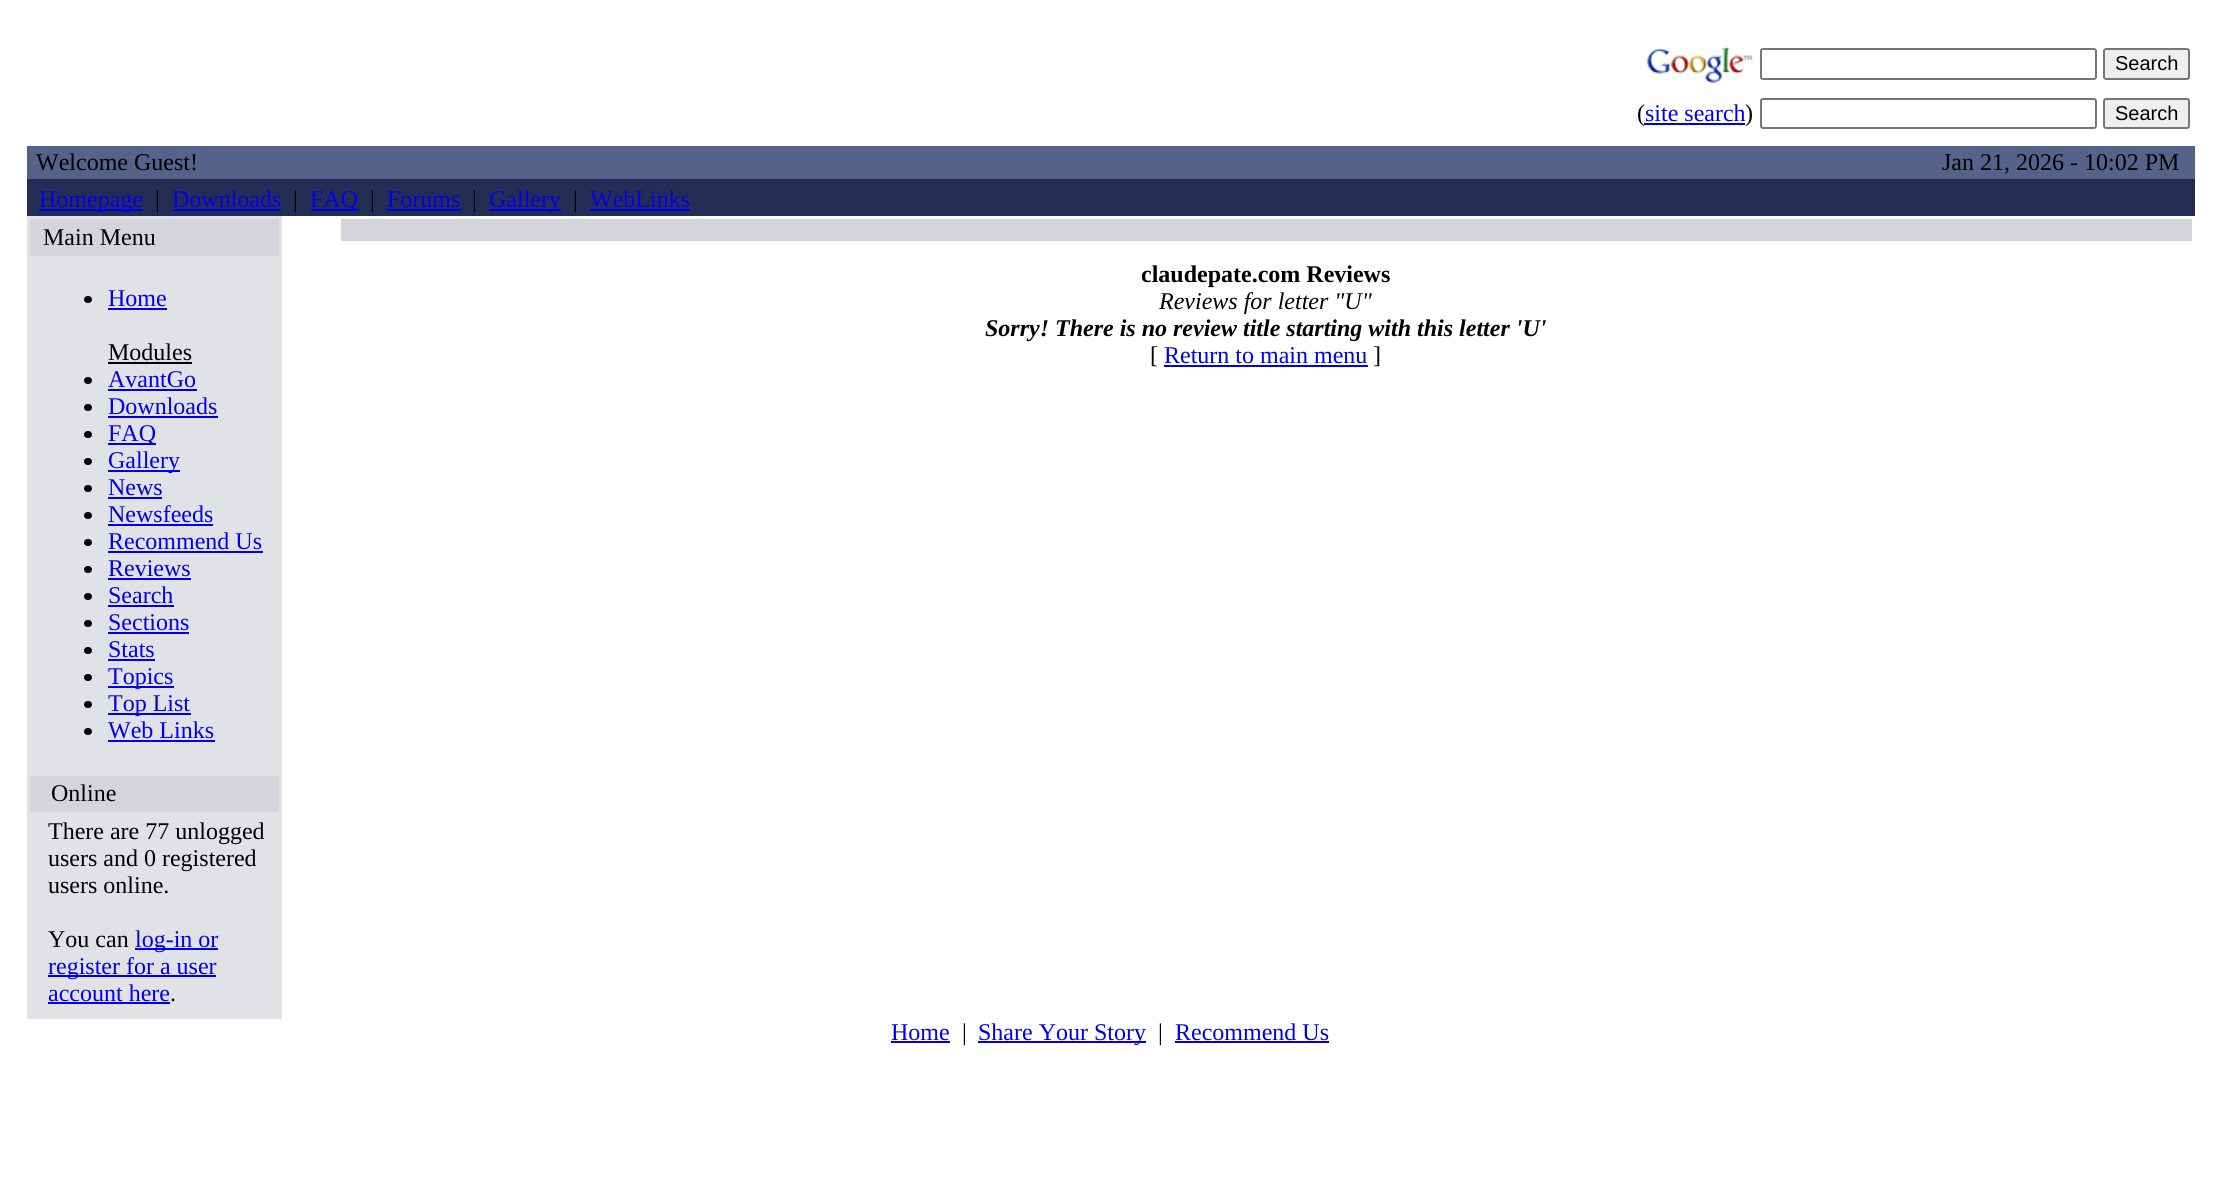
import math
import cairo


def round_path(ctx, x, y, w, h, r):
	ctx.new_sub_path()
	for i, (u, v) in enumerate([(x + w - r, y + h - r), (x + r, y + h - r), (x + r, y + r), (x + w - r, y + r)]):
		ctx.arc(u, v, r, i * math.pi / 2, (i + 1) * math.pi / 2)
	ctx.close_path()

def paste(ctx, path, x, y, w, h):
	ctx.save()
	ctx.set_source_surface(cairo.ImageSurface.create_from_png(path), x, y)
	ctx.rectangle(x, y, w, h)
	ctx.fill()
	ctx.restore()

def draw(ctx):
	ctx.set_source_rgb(1, 1, 1)
	ctx.paint()
	paste(ctx, 'media/1.png', 1646, 47, 107, 36)
	round_path(ctx, 1761, 49, 335, 30, 2)
	ctx.set_source_rgb(0.463, 0.463, 0.463)
	ctx.stroke()
	ctx.set_source_rgb(0.937, 0.937, 0.937)
	round_path(ctx, 2104, 49, 85, 30, 2)
	ctx.fill_preserve()
	ctx.set_source_rgb(0.463, 0.463, 0.463)
	ctx.stroke()
	ctx.select_font_face('Liberation Sans')
	ctx.set_font_size(20)
	ctx.set_source_rgb(0, 0, 0)
	ctx.move_to(2115, 70)
	ctx.show_text('Search')
	ctx.select_font_face('Liberation Serif')
	ctx.set_font_size(24)
	ctx.move_to(1637, 121)
	ctx.show_text('(')
	ctx.set_source_rgb(0, 0, 0.933)
	ctx.move_to(1645, 121)
	ctx.show_text('site search')
	ctx.rectangle(1644, 123, 101, 2)
	ctx.fill()
	ctx.set_source_rgb(0, 0, 0)
	ctx.move_to(1745, 121)
	ctx.show_text(')')
	round_path(ctx, 1761, 99, 335, 29, 2)
	ctx.set_source_rgb(0.463, 0.463, 0.463)
	ctx.stroke()
	ctx.set_source_rgb(0.937, 0.937, 0.937)
	round_path(ctx, 2104, 99, 85, 29, 2)
	ctx.fill_preserve()
	ctx.set_source_rgb(0.463, 0.463, 0.463)
	ctx.stroke()
	ctx.select_font_face('Liberation Sans')
	ctx.set_font_size(20)
	ctx.set_source_rgb(0, 0, 0)
	ctx.move_to(2115, 120)
	ctx.show_text('Search')
	ctx.set_source_rgb(0.333, 0.384, 0.537)
	ctx.rectangle(27, 146, 2168, 33)
	ctx.fill()
	ctx.select_font_face('Liberation Serif')
	ctx.set_font_size(24)
	ctx.set_source_rgb(0, 0, 0)
	ctx.move_to(36, 170)
	ctx.show_text('Welcome Guest!')
	ctx.move_to(1942, 170)
	ctx.show_text('Jan 21, 2026 - 10:02 PM')
	ctx.set_source_rgb(0.141, 0.18, 0.333)
	ctx.rectangle(27, 179, 2168, 37)
	ctx.fill()
	ctx.set_source_rgb(0, 0, 0.933)
	ctx.rectangle(39, 209, 104, 2)
	ctx.fill()
	ctx.move_to(39, 207)
	ctx.show_text('Homepage')
	ctx.set_source_rgb(0, 0, 0)
	ctx.move_to(155, 207)
	ctx.show_text('|')
	ctx.set_source_rgb(0, 0, 0.933)
	ctx.move_to(172, 207)
	ctx.show_text('Downloads')
	ctx.rectangle(173, 209, 108, 2)
	ctx.fill()
	ctx.set_source_rgb(0, 0, 0)
	ctx.move_to(293, 207)
	ctx.show_text('|')
	ctx.set_source_rgb(0, 0, 0.933)
	ctx.rectangle(311, 209, 48, 2)
	ctx.fill()
	ctx.move_to(310, 207)
	ctx.show_text('FAQ')
	ctx.set_source_rgb(0, 0, 0)
	ctx.move_to(370, 207)
	ctx.show_text('|')
	ctx.set_source_rgb(0, 0, 0.933)
	ctx.move_to(387, 207)
	ctx.show_text('Forums')
	ctx.rectangle(387, 209, 74, 2)
	ctx.fill()
	ctx.set_source_rgb(0, 0, 0)
	ctx.move_to(472, 207)
	ctx.show_text('|')
	ctx.set_source_rgb(0, 0, 0.933)
	ctx.rectangle(489, 209, 72, 2)
	ctx.fill()
	ctx.move_to(489, 207)
	ctx.show_text('Gallery')
	ctx.set_source_rgb(0, 0, 0)
	ctx.move_to(573, 207)
	ctx.show_text('|')
	ctx.set_source_rgb(0, 0, 0.933)
	ctx.move_to(590, 207)
	ctx.show_text('WebLinks')
	ctx.rectangle(590, 209, 100, 2)
	ctx.fill()
	ctx.set_source_rgb(0.882, 0.886, 0.898)
	ctx.rectangle(27, 216, 255, 803)
	ctx.fill()
	ctx.set_source_rgb(0.827, 0.835, 0.855)
	ctx.rectangle(30, 219, 249, 5)
	ctx.rectangle(30, 224, 249, 27)
	ctx.fill()
	ctx.set_source_rgb(0, 0, 0)
	ctx.move_to(43, 245)
	ctx.show_text('Main Menu')
	ctx.set_source_rgb(0.827, 0.835, 0.855)
	ctx.rectangle(30, 251, 249, 5)
	ctx.fill()
	ctx.set_source_rgb(0, 0, 0)
	round_path(ctx, 84, 296, 8, 7, 3.5)
	ctx.fill()
	ctx.set_source_rgb(0, 0, 0.933)
	ctx.move_to(108, 306)
	ctx.show_text('Home')
	ctx.rectangle(108, 308, 59, 2)
	ctx.fill()
	ctx.set_source_rgb(0, 0, 0)
	ctx.move_to(108, 360)
	ctx.show_text('Modules')
	ctx.rectangle(108, 362, 84, 2)
	ctx.fill()
	round_path(ctx, 84, 377, 8, 7, 3.5)
	ctx.fill()
	ctx.set_source_rgb(0, 0, 0.933)
	ctx.move_to(108, 387)
	ctx.show_text('AvantGo')
	ctx.rectangle(108, 389, 89, 2)
	ctx.fill()
	ctx.set_source_rgb(0, 0, 0)
	round_path(ctx, 84, 404, 8, 7, 3.5)
	ctx.fill()
	ctx.set_source_rgb(0, 0, 0.933)
	ctx.move_to(108, 414)
	ctx.show_text('Downloads')
	ctx.rectangle(108, 416, 110, 2)
	ctx.fill()
	ctx.set_source_rgb(0, 0, 0)
	round_path(ctx, 84, 431, 8, 7, 3.5)
	ctx.fill()
	ctx.set_source_rgb(0, 0, 0.933)
	ctx.rectangle(108, 443, 48, 2)
	ctx.fill()
	ctx.move_to(108, 441)
	ctx.show_text('FAQ')
	ctx.set_source_rgb(0, 0, 0)
	round_path(ctx, 84, 458, 8, 7, 3.5)
	ctx.fill()
	ctx.set_source_rgb(0, 0, 0.933)
	ctx.rectangle(108, 470, 72, 2)
	ctx.fill()
	ctx.move_to(108, 468)
	ctx.show_text('Gallery')
	ctx.set_source_rgb(0, 0, 0)
	round_path(ctx, 84, 485, 8, 7, 3.5)
	ctx.fill()
	ctx.set_source_rgb(0, 0, 0.933)
	ctx.move_to(108, 495)
	ctx.show_text('News')
	ctx.rectangle(108, 497, 54, 2)
	ctx.fill()
	ctx.set_source_rgb(0, 0, 0)
	round_path(ctx, 84, 512, 8, 7, 3.5)
	ctx.fill()
	ctx.set_source_rgb(0, 0, 0.933)
	ctx.move_to(108, 522)
	ctx.show_text('Newsfeeds')
	ctx.rectangle(108, 524, 105, 2)
	ctx.fill()
	ctx.set_source_rgb(0, 0, 0)
	round_path(ctx, 84, 539, 8, 7, 3.5)
	ctx.fill()
	ctx.set_source_rgb(0, 0, 0.933)
	ctx.move_to(108, 549)
	ctx.show_text('Recommend Us')
	ctx.rectangle(108, 551, 155, 2)
	ctx.fill()
	ctx.set_source_rgb(0, 0, 0)
	round_path(ctx, 84, 566, 8, 7, 3.5)
	ctx.fill()
	ctx.set_source_rgb(0, 0, 0.933)
	ctx.move_to(108, 576)
	ctx.show_text('Reviews')
	ctx.rectangle(108, 578, 83, 2)
	ctx.fill()
	ctx.set_source_rgb(0, 0, 0)
	round_path(ctx, 84, 593, 8, 7, 3.5)
	ctx.fill()
	ctx.set_source_rgb(0, 0, 0.933)
	ctx.move_to(108, 603)
	ctx.show_text('Search')
	ctx.rectangle(108, 605, 66, 2)
	ctx.fill()
	ctx.set_source_rgb(0, 0, 0)
	round_path(ctx, 84, 620, 8, 7, 3.5)
	ctx.fill()
	ctx.set_source_rgb(0, 0, 0.933)
	ctx.move_to(108, 630)
	ctx.show_text('Sections')
	ctx.rectangle(108, 632, 81, 2)
	ctx.fill()
	ctx.set_source_rgb(0, 0, 0)
	round_path(ctx, 84, 647, 8, 7, 3.5)
	ctx.fill()
	ctx.set_source_rgb(0, 0, 0.933)
	ctx.move_to(108, 657)
	ctx.show_text('Stats')
	ctx.rectangle(108, 659, 47, 2)
	ctx.fill()
	ctx.set_source_rgb(0, 0, 0)
	round_path(ctx, 84, 674, 8, 7, 3.5)
	ctx.fill()
	ctx.set_source_rgb(0, 0, 0.933)
	ctx.rectangle(108, 686, 66, 2)
	ctx.fill()
	ctx.move_to(108, 684)
	ctx.show_text('Topics')
	ctx.set_source_rgb(0, 0, 0)
	round_path(ctx, 84, 701, 8, 7, 3.5)
	ctx.fill()
	ctx.set_source_rgb(0, 0, 0.933)
	ctx.rectangle(108, 713, 83, 2)
	ctx.fill()
	ctx.move_to(108, 711)
	ctx.show_text('Top List')
	ctx.set_source_rgb(0, 0, 0)
	round_path(ctx, 84, 728, 8, 7, 3.5)
	ctx.fill()
	ctx.set_source_rgb(0, 0, 0.933)
	ctx.move_to(108, 738)
	ctx.show_text('Web Links')
	ctx.rectangle(108, 740, 107, 2)
	ctx.fill()
	ctx.set_source_rgb(0.827, 0.835, 0.855)
	ctx.rectangle(30, 776, 249, 4)
	ctx.rectangle(30, 780, 249, 27)
	ctx.fill()
	ctx.set_source_rgb(0, 0, 0)
	ctx.move_to(51, 801)
	ctx.show_text('Online')
	ctx.set_source_rgb(0.827, 0.835, 0.855)
	ctx.rectangle(30, 807, 249, 5)
	ctx.fill()
	ctx.set_source_rgb(0, 0, 0)
	for x, y, s in [
		(48, 839, 'There are 77 unlogged'),
		(48, 866, 'users and 0 registered'),
		(48, 893, 'users online.'),
		(48, 947, 'You can'),
	]:
		ctx.move_to(x, y)
		ctx.show_text(s)
	ctx.set_source_rgb(0, 0, 0.933)
	ctx.rectangle(135, 948, 83, 2)
	ctx.fill()
	ctx.move_to(135, 947)
	ctx.show_text('log-in or')
	ctx.rectangle(48, 975, 168, 2)
	ctx.fill()
	ctx.move_to(48, 974)
	ctx.show_text('register for a user')
	ctx.move_to(48, 1001)
	ctx.show_text('account here')
	ctx.rectangle(48, 1002, 122, 2)
	ctx.fill()
	ctx.set_source_rgb(0, 0, 0)
	ctx.move_to(170, 1001)
	ctx.show_text('.')
	ctx.set_source_rgb(0.827, 0.835, 0.855)
	ctx.rectangle(341, 219, 1851, 22)
	ctx.fill()
	ctx.select_font_face('Liberation Serif', cairo.FONT_SLANT_NORMAL, cairo.FONT_WEIGHT_BOLD)
	ctx.set_source_rgb(0, 0, 0)
	ctx.move_to(1141, 282)
	ctx.show_text('claudepate.com Reviews')
	ctx.select_font_face('Liberation Serif', cairo.FONT_SLANT_ITALIC)
	ctx.move_to(1159, 309)
	ctx.show_text('Reviews for letter "U"')
	ctx.select_font_face('Liberation Serif', cairo.FONT_SLANT_ITALIC, cairo.FONT_WEIGHT_BOLD)
	ctx.move_to(985, 336)
	ctx.show_text('Sorry! There is no review title starting with this letter \'U\'')
	ctx.select_font_face('Liberation Serif')
	ctx.move_to(1150, 363)
	ctx.show_text('[')
	ctx.set_source_rgb(0, 0, 0.933)
	ctx.move_to(1164, 363)
	ctx.show_text('Return to main menu')
	ctx.rectangle(1164, 365, 204, 2)
	ctx.fill()
	ctx.set_source_rgb(0, 0, 0)
	ctx.move_to(1373, 363)
	ctx.show_text(']')
	ctx.set_source_rgb(0, 0, 0.933)
	ctx.move_to(891, 1040)
	ctx.show_text('Home')
	ctx.rectangle(891, 1041, 59, 2)
	ctx.fill()
	ctx.set_source_rgb(0, 0, 0)
	ctx.move_to(962, 1040)
	ctx.show_text('|')
	ctx.set_source_rgb(0, 0, 0.933)
	ctx.rectangle(978, 1041, 168, 2)
	ctx.fill()
	ctx.move_to(978, 1040)
	ctx.show_text('Share Your Story')
	ctx.set_source_rgb(0, 0, 0)
	ctx.move_to(1158, 1040)
	ctx.show_text('|')
	ctx.set_source_rgb(0, 0, 0.933)
	ctx.move_to(1175, 1040)
	ctx.show_text('Recommend Us')
	ctx.rectangle(1175, 1041, 154, 2)
	ctx.fill()


surface = cairo.ImageSurface(cairo.FORMAT_RGB24, 2221, 1192)
ctx = cairo.Context(surface)
options = cairo.FontOptions()
options.set_hint_metrics(cairo.HINT_METRICS_OFF)
options.set_hint_style(cairo.HINT_STYLE_NONE)
ctx.set_font_options(options)
ctx.set_miter_limit(4)
draw(ctx)
surface.write_to_png('image.png')
